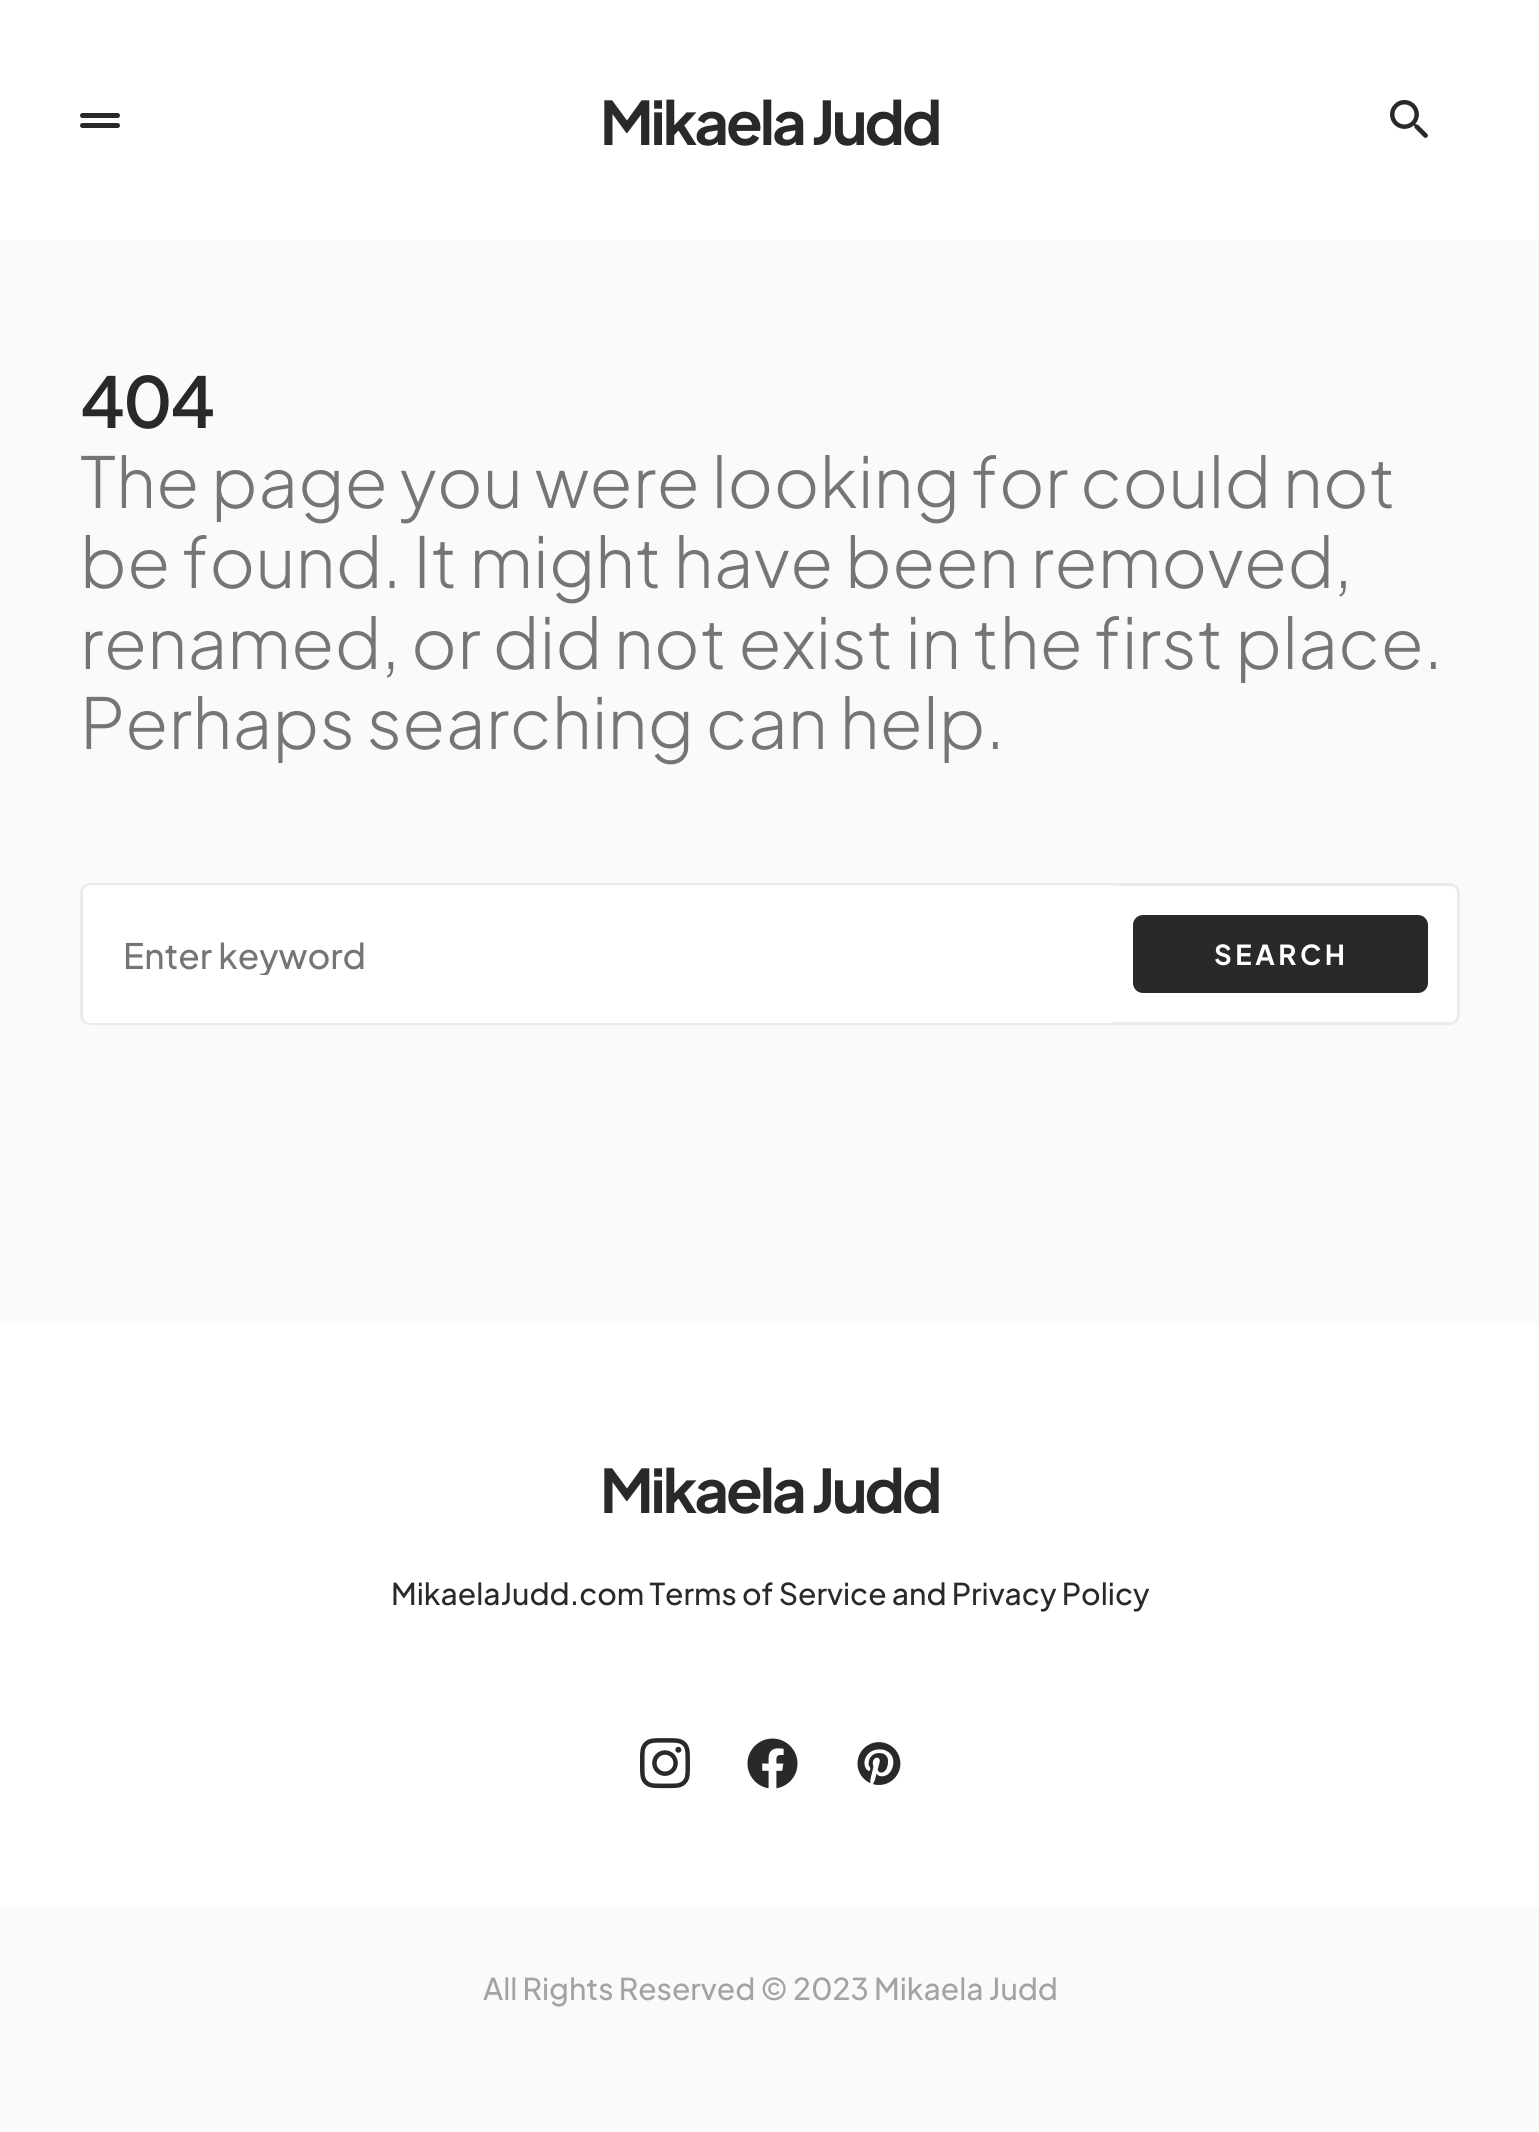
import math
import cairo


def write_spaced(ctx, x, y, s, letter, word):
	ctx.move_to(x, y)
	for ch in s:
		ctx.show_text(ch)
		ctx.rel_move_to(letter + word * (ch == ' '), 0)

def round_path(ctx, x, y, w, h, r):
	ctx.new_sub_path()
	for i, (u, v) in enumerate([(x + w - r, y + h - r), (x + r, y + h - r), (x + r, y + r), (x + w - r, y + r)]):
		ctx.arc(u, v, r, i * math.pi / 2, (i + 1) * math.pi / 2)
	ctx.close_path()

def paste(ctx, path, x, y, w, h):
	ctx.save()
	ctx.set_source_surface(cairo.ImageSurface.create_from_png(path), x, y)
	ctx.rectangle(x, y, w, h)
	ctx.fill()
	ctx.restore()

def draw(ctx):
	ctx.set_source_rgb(0.98, 0.98, 0.98)
	ctx.paint()
	ctx.set_source_rgb(1, 1, 1)
	ctx.rectangle(0, 0, 1539, 240)
	ctx.fill()
	ctx.set_source_rgb(0.161, 0.161, 0.161)
	round_path(ctx, 80, 113, 40, 5, 2.5)
	ctx.fill()
	round_path(ctx, 80, 123, 40, 5, 2.5)
	ctx.fill()
	ctx.select_font_face('Plus Jakarta Sans', cairo.FONT_SLANT_NORMAL, cairo.FONT_WEIGHT_BOLD)
	ctx.set_font_size(60)
	write_spaced(ctx, 600, 145, 'Mikaela Judd', -3, 0)
	paste(ctx, 'media/1.png', 1390, 100, 38, 38)
	ctx.select_font_face('Plus Jakarta Sans SemiBold')
	ctx.set_font_size(70)
	write_spaced(ctx, 80, 428, '404', -2.5, 0)
	ctx.select_font_face('Plus Jakarta Sans Light')
	ctx.set_source_rgb(0.459, 0.459, 0.459)
	for x, y, s in [
		(80, 508, 'The page you were looking for could not'),
		(80, 588, 'be found. It might have been removed,'),
		(80, 669, 'renamed, or did not exist in the first place.'),
		(80, 749, 'Perhaps searching can help.'),
	]:
		ctx.move_to(x, y)
		ctx.show_text(s)
	ctx.set_source_rgb(1, 1, 1)
	round_path(ctx, 81.5, 884.5, 1377, 139, 8.5)
	ctx.fill_preserve()
	ctx.set_source_rgb(0.914, 0.925, 0.937)
	ctx.set_line_width(3)
	ctx.stroke()
	ctx.set_source_rgb(1, 1, 1)
	ctx.new_path()
	ctx.move_to(91, 885)
	ctx.line_to(1113, 885)
	ctx.line_to(1113, 1023)
	ctx.line_to(91, 1023)
	ctx.curve_to(86.5, 1023, 83, 1019.5, 83, 1015)
	ctx.line_to(83, 893)
	ctx.curve_to(83, 888.5, 86.5, 885, 91, 885)
	ctx.close_path()
	ctx.fill()
	ctx.save()
	ctx.rectangle(123, 930, 950, 45)
	ctx.clip()
	ctx.select_font_face('Plus Jakarta Sans Medium')
	ctx.set_font_size(35)
	ctx.set_source_rgb(0.459, 0.459, 0.459)
	ctx.move_to(123, 969)
	ctx.show_text('Enter keyword')
	ctx.restore()
	ctx.set_source_rgb(0.161, 0.161, 0.161)
	round_path(ctx, 1133, 915, 295, 78, 10)
	ctx.fill()
	ctx.select_font_face('Plus Jakarta Sans', cairo.FONT_SLANT_NORMAL, cairo.FONT_WEIGHT_BOLD)
	ctx.set_font_size(27.5)
	ctx.set_source_rgb(1, 1, 1)
	write_spaced(ctx, 1214, 965, 'SEARCH', 3.5, 0)
	ctx.rectangle(0, 1323, 1539, 585)
	ctx.fill()
	ctx.set_font_size(60)
	ctx.set_source_rgb(0.161, 0.161, 0.161)
	write_spaced(ctx, 600, 1513, 'Mikaela Judd', -3, 0)
	ctx.select_font_face('Plus Jakarta Sans Medium')
	ctx.set_font_size(30)
	ctx.move_to(391, 1605)
	ctx.show_text('MikaelaJudd.com Terms of Service and Privacy Policy')
	paste(ctx, 'media/2.png', 640, 1738, 50, 51)
	paste(ctx, 'media/3.png', 747, 1738, 51, 51)
	paste(ctx, 'media/4.png', 857, 1742, 44, 43)
	ctx.set_source_rgb(0.639, 0.639, 0.639)
	ctx.move_to(483, 2000)
	ctx.show_text('All Rights Reserved © 2023 Mikaela Judd')


surface = cairo.ImageSurface(cairo.FORMAT_RGB24, 1539, 2132)
ctx = cairo.Context(surface)
options = cairo.FontOptions()
options.set_hint_metrics(cairo.HINT_METRICS_OFF)
options.set_hint_style(cairo.HINT_STYLE_NONE)
ctx.set_font_options(options)
ctx.set_miter_limit(4)
draw(ctx)
surface.write_to_png('image.png')
